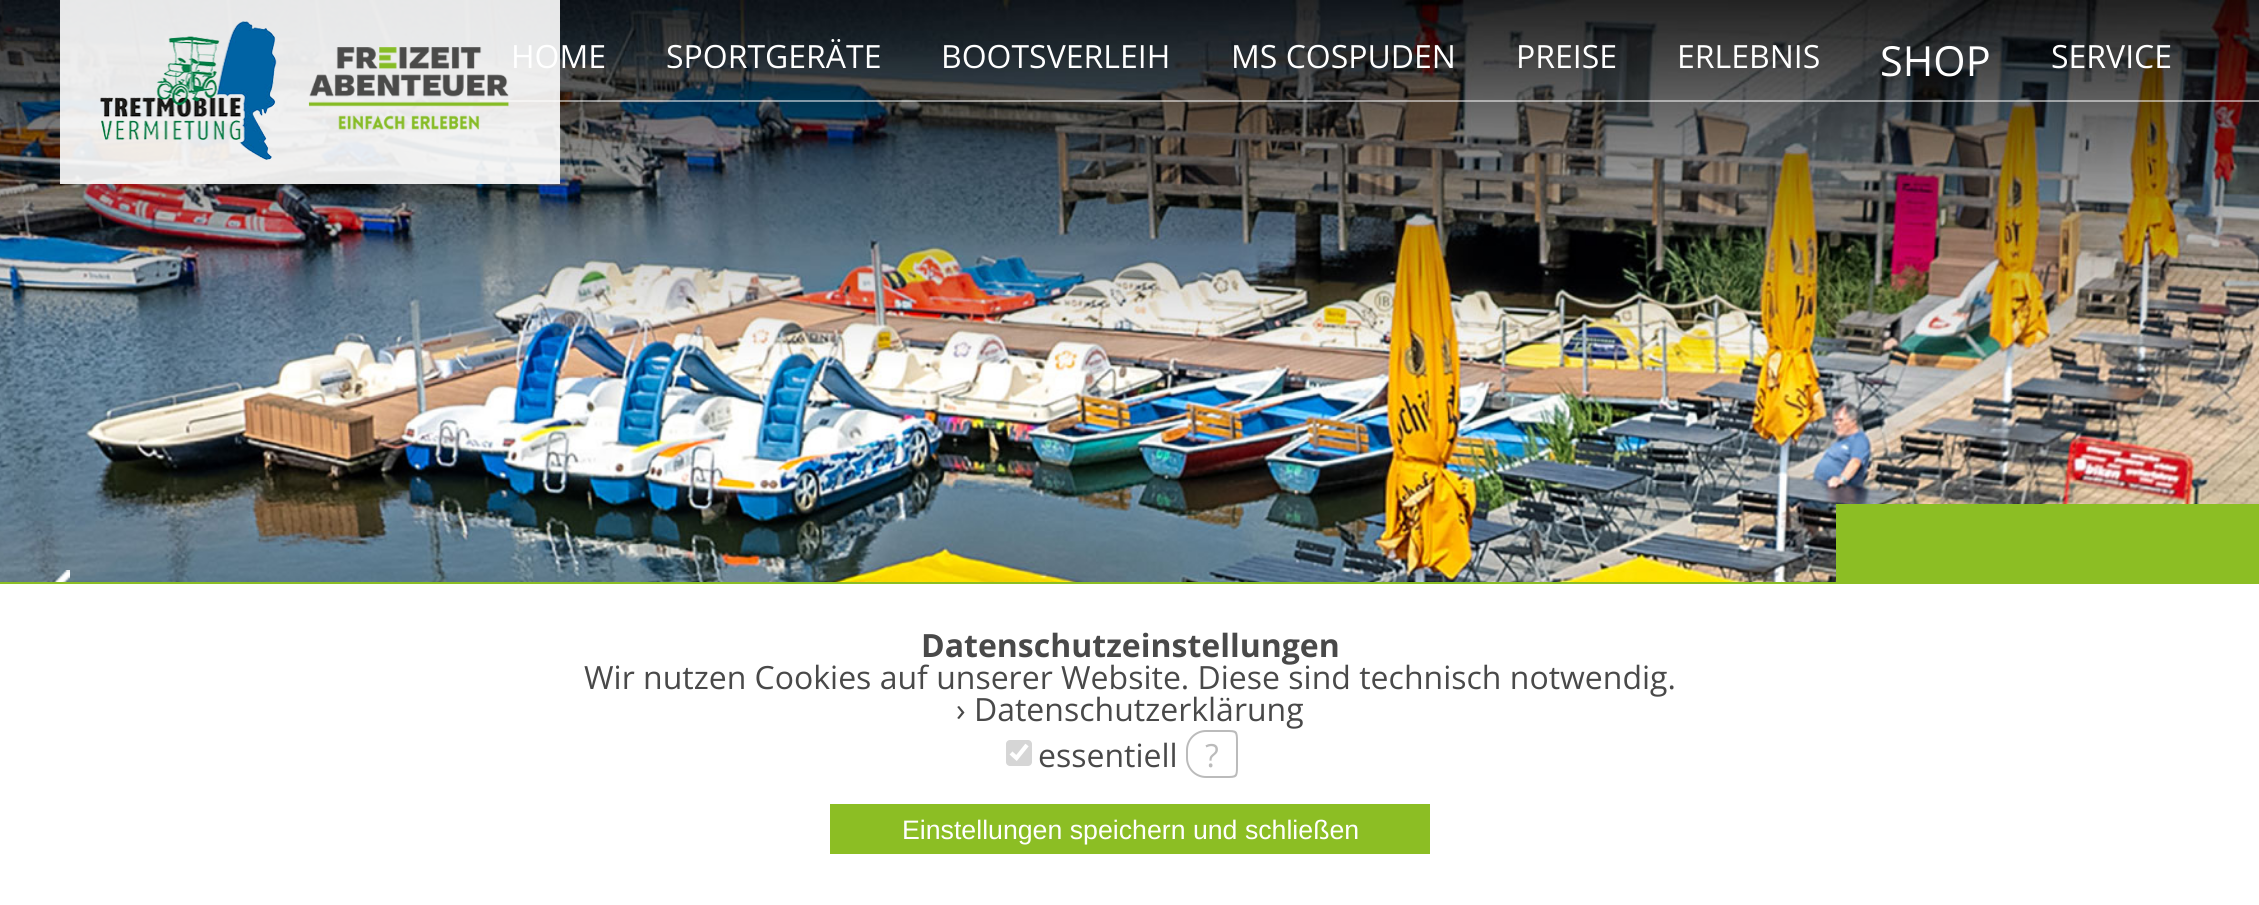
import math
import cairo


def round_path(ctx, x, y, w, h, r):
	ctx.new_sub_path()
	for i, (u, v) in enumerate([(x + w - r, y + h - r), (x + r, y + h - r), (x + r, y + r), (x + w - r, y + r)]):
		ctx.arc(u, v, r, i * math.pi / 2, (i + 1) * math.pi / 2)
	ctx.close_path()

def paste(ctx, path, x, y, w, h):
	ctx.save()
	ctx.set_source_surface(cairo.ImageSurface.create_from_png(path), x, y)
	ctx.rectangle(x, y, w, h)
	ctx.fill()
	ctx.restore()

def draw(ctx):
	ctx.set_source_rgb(1, 1, 1)
	ctx.paint()
	paste(ctx, 'media/1.png', 0, 0, 2259, 582)
	paste(ctx, 'media/2.png', 53, 570, 17, 12)
	ctx.set_source_rgba(1, 1, 1, 0.5)
	ctx.rectangle(480, 100, 1779, 2)
	ctx.fill()
	ctx.set_source_rgba(1, 1, 1, 0.9)
	ctx.rectangle(60, 0, 500, 184)
	ctx.fill()
	paste(ctx, 'media/3.png', 100, 21, 177, 139)
	paste(ctx, 'media/4.png', 308, 47, 201, 83)
	ctx.select_font_face('Open Sans')
	ctx.set_font_size(32)
	ctx.set_source_rgb(1, 1, 1)
	for x, y, s in [
		(511, 68, 'HOME'),
		(666, 68, 'SPORTGERÄTE'),
		(941, 68, 'BOOTSVERLEIH'),
		(1231, 68, 'MS COSPUDEN'),
		(1516, 68, 'PREISE'),
		(1677, 68, 'ERLEBNIS'),
	]:
		ctx.move_to(x, y)
		ctx.show_text(s)
	ctx.set_font_size(41.5)
	ctx.move_to(1880, 76)
	ctx.show_text('SHOP')
	ctx.set_font_size(32)
	ctx.move_to(2051, 68)
	ctx.show_text('SERVICE')
	ctx.set_source_rgb(0.549, 0.745, 0.141)
	ctx.rectangle(1836, 504, 423, 78)
	ctx.fill()
	ctx.rectangle(0, 582, 2259, 2)
	ctx.fill()
	ctx.select_font_face('Open Sans', cairo.FONT_SLANT_NORMAL, cairo.FONT_WEIGHT_BOLD)
	ctx.set_source_rgb(0.286, 0.286, 0.286)
	ctx.move_to(921, 657)
	ctx.show_text('Datenschutzeinstellungen')
	ctx.select_font_face('Open Sans')
	ctx.move_to(584, 689)
	ctx.show_text('Wir nutzen Cookies auf unserer Website. Diese sind technisch notwendig.')
	ctx.move_to(956, 721)
	ctx.show_text('› Datenschutzerklärung')
	ctx.set_source_rgb(0.839, 0.839, 0.839)
	round_path(ctx, 1006, 740, 26, 26, 4)
	ctx.fill()
	ctx.new_path()
	ctx.move_to(1011, 753)
	ctx.line_to(1016.5, 758)
	ctx.line_to(1027, 745)
	ctx.set_source_rgb(1, 1, 1)
	ctx.set_line_width(4.2)
	ctx.stroke()
	ctx.set_source_rgb(0.286, 0.286, 0.286)
	ctx.move_to(1038, 767)
	ctx.show_text('essentiell')
	ctx.set_source_rgb(0.733, 0.733, 0.733)
	ctx.set_fill_rule(cairo.FILL_RULE_EVEN_ODD)
	ctx.new_path()
	ctx.move_to(1206, 730)
	ctx.line_to(1226, 730)
	ctx.line_to(1226, 778)
	ctx.line_to(1206, 778)
	ctx.curve_to(1195, 778, 1186, 769, 1186, 758)
	ctx.line_to(1186, 750)
	ctx.curve_to(1186, 739, 1195, 730, 1206, 730)
	ctx.close_path()
	ctx.move_to(1206, 732)
	ctx.line_to(1226, 732)
	ctx.line_to(1226, 776)
	ctx.line_to(1206, 776)
	ctx.curve_to(1196, 776, 1188, 768, 1188, 758)
	ctx.line_to(1188, 750)
	ctx.curve_to(1188, 740, 1196, 732, 1206, 732)
	ctx.close_path()
	ctx.move_to(1226, 730)
	ctx.curve_to(1237, 730, 1238, 730, 1238, 742)
	ctx.line_to(1238, 766)
	ctx.curve_to(1238, 778, 1237, 778, 1226, 778)
	ctx.close_path()
	ctx.move_to(1226, 732)
	ctx.curve_to(1236, 732, 1236, 732, 1236, 742)
	ctx.line_to(1236, 766)
	ctx.curve_to(1236, 776, 1236, 776, 1226, 776)
	ctx.close_path()
	ctx.fill()
	ctx.move_to(1205, 767)
	ctx.show_text('?')
	ctx.set_source_rgb(0.549, 0.745, 0.141)
	ctx.rectangle(830, 804, 600, 50)
	ctx.fill()
	ctx.select_font_face('Liberation Sans')
	ctx.set_font_size(26.7)
	ctx.set_source_rgb(1, 1, 1)
	ctx.move_to(902, 839)
	ctx.show_text('Einstellungen speichern und schließen')


surface = cairo.ImageSurface(cairo.FORMAT_RGB24, 2259, 905)
ctx = cairo.Context(surface)
options = cairo.FontOptions()
options.set_hint_metrics(cairo.HINT_METRICS_OFF)
options.set_hint_style(cairo.HINT_STYLE_NONE)
ctx.set_font_options(options)
ctx.set_miter_limit(4)
draw(ctx)
surface.write_to_png('image.png')
